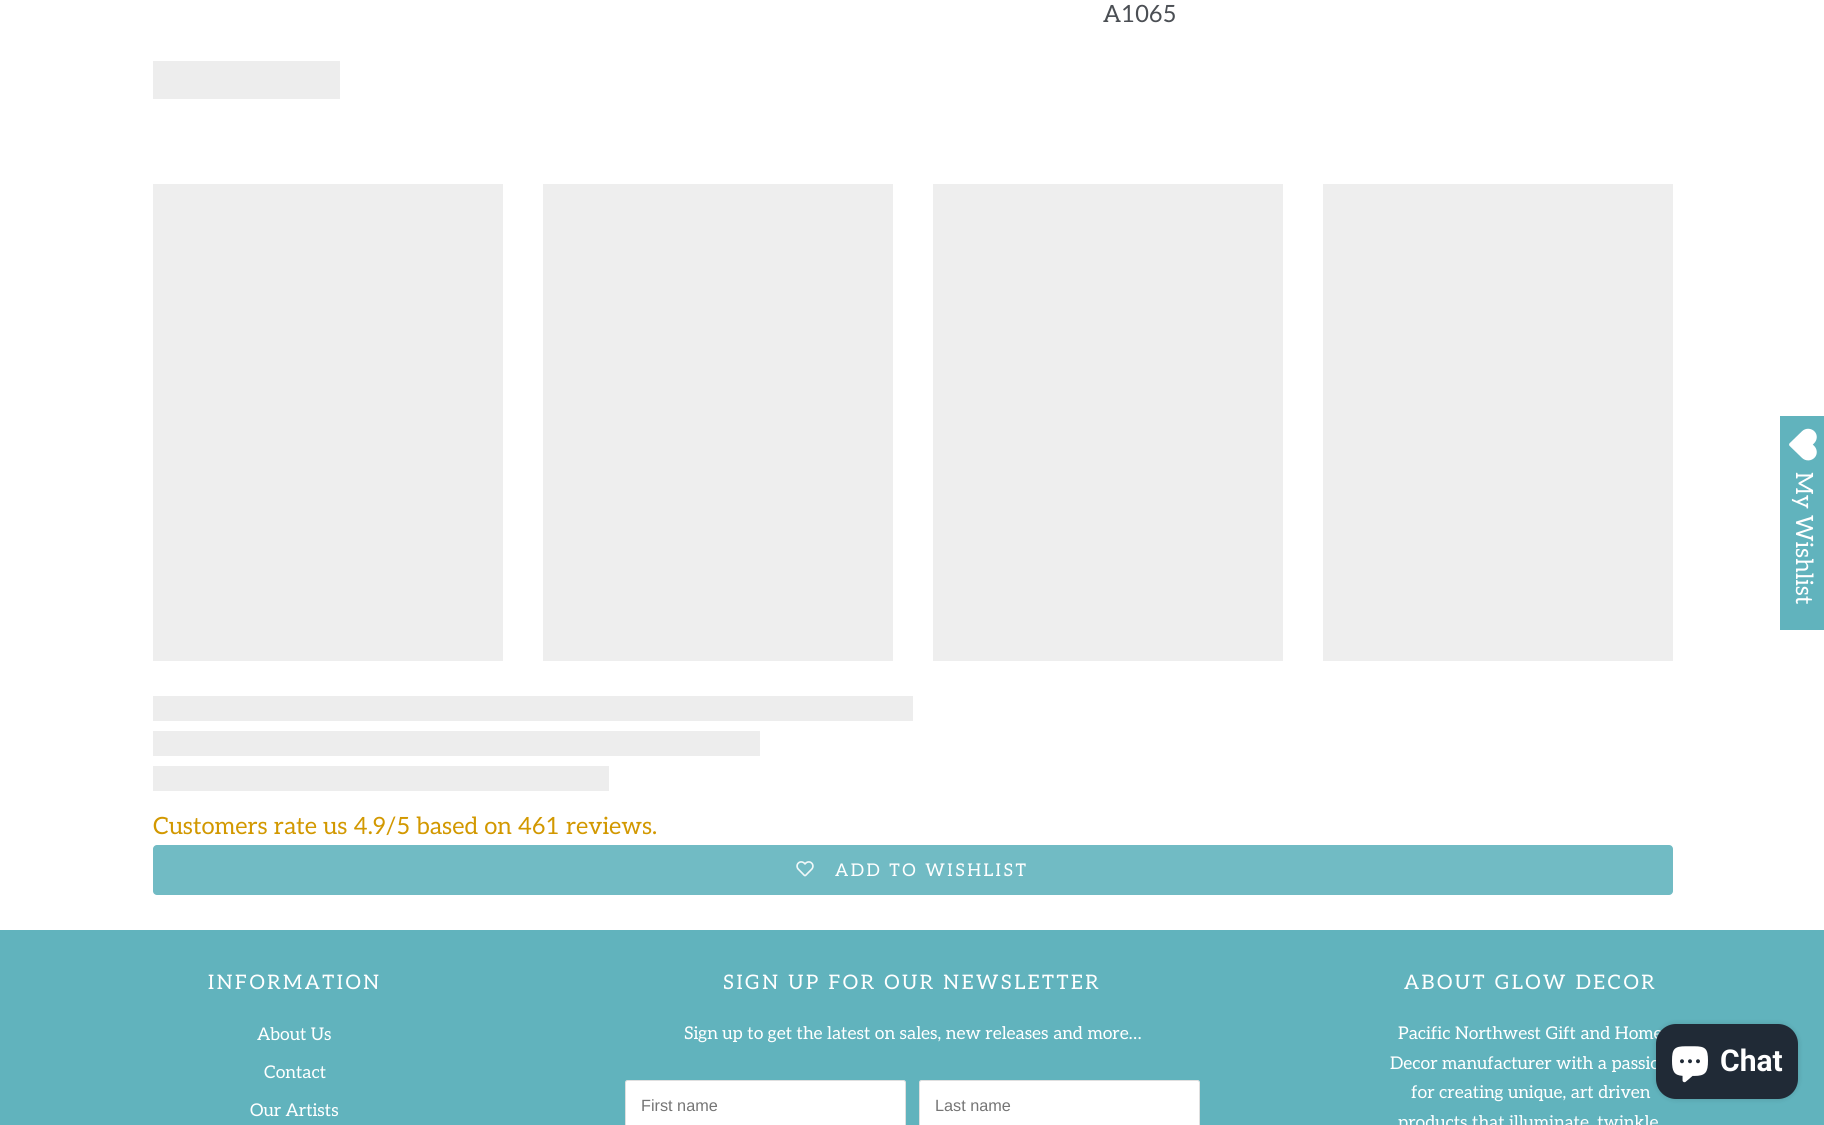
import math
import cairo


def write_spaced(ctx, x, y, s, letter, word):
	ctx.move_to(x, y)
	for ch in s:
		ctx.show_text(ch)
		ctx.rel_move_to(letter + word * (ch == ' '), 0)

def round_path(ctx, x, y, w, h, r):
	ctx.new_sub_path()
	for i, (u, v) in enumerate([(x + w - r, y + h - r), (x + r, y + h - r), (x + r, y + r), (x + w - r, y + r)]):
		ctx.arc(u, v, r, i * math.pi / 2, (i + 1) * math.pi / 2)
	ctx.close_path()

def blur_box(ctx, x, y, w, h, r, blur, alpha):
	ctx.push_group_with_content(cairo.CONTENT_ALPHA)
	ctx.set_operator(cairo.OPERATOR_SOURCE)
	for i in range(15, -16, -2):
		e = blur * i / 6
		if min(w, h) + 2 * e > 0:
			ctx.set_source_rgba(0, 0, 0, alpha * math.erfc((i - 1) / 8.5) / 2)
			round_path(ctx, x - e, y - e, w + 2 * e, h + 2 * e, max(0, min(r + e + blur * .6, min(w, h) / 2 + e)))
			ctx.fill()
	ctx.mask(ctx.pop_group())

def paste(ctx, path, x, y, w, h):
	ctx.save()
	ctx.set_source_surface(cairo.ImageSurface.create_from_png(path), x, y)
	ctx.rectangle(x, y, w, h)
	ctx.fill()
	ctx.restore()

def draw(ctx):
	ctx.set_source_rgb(1, 1, 1)
	ctx.paint()
	ctx.select_font_face('Aleo')
	ctx.set_font_size(23.75)
	ctx.set_source_rgb(0.294, 0.31, 0.329)
	ctx.move_to(1103, 22)
	ctx.show_text('A1065')
	ctx.set_source_rgb(0.929, 0.929, 0.929)
	ctx.rectangle(153, 61, 187, 38)
	ctx.fill()
	ctx.set_source_rgb(0.933, 0.933, 0.933)
	ctx.rectangle(153, 184, 350, 477)
	ctx.rectangle(543, 184, 350, 477)
	ctx.rectangle(933, 184, 350, 477)
	ctx.rectangle(1323, 184, 350, 477)
	ctx.fill()
	ctx.set_source_rgb(0.929, 0.929, 0.929)
	ctx.rectangle(153, 696, 760, 25)
	ctx.rectangle(153, 731, 607, 25)
	ctx.rectangle(153, 766, 456, 25)
	ctx.fill()
	ctx.set_source_rgb(0.824, 0.596, 0)
	ctx.move_to(153, 834)
	ctx.show_text('Customers rate us 4.9/5 based on 461 reviews.')
	ctx.set_source_rgb(0.443, 0.733, 0.769)
	round_path(ctx, 153, 845, 1520, 50, 4)
	ctx.fill()
	paste(ctx, 'media/1.png', 796, 861, 18, 16)
	ctx.set_font_size(17.5)
	ctx.set_source_rgb(1, 1, 1)
	write_spaced(ctx, 835, 876, 'ADD TO WISHLIST', 2.5, 0)
	ctx.set_source_rgb(0.38, 0.702, 0.741)
	ctx.rectangle(1780, 416, 44, 214)
	ctx.fill()
	paste(ctx, 'media/2.png', 1789, 428, 28, 33)
	ctx.set_font_size(23.75)
	ctx.set_source_rgb(1, 1, 1)
	ctx.save()
	ctx.translate(1796, 472)
	ctx.rotate(90 * math.pi / 180)
	ctx.move_to(0, 0)
	ctx.show_text('My Wishlist')
	ctx.restore()
	ctx.set_source_rgb(0.38, 0.702, 0.741)
	ctx.rectangle(0, 930, 1824, 195)
	ctx.fill()
	ctx.set_font_size(20)
	ctx.set_source_rgb(1, 1, 1)
	write_spaced(ctx, 208, 989, 'INFORMATION', 2.5, 0)
	ctx.set_font_size(17.5)
	for x, y, s in [
		(257, 1040, 'About Us'),
		(264, 1078, 'Contact'),
		(250, 1116, 'Our Artists'),
	]:
		ctx.move_to(x, y)
		ctx.show_text(s)
	ctx.set_font_size(20)
	write_spaced(ctx, 723, 989, 'SIGN UP FOR OUR NEWSLETTER', 2.5, 0)
	ctx.set_font_size(17.5)
	ctx.move_to(684, 1039)
	ctx.show_text('Sign up to get the latest on sales, new releases and more…')
	round_path(ctx, 625.5, 1080.5, 280, 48, 2)
	ctx.fill_preserve()
	ctx.set_source_rgb(0.875, 0.875, 0.875)
	ctx.set_line_width(1)
	ctx.stroke()
	ctx.select_font_face('Liberation Sans')
	ctx.set_font_size(16.25)
	ctx.set_source_rgb(0.459, 0.459, 0.459)
	ctx.move_to(641, 1111)
	ctx.show_text('First name')
	ctx.set_source_rgb(1, 1, 1)
	round_path(ctx, 919.5, 1080.5, 280, 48, 2)
	ctx.fill_preserve()
	ctx.set_source_rgb(0.875, 0.875, 0.875)
	ctx.stroke()
	ctx.set_source_rgb(0.459, 0.459, 0.459)
	ctx.move_to(935, 1111)
	ctx.show_text('Last name')
	ctx.select_font_face('Aleo')
	ctx.set_font_size(20)
	ctx.set_source_rgb(1, 1, 1)
	write_spaced(ctx, 1404, 989, 'ABOUT GLOW DECOR', 2.5, 0)
	ctx.set_font_size(17.5)
	for x, y, s in [
		(1398, 1039, 'Pacific Northwest Gift and Home'),
		(1390, 1069, 'Decor manufacturer with a passio'),
		(1411, 1098, 'for creating unique, art driven'),
		(1398, 1128, 'products that illuminate, twinkle'),
	]:
		ctx.move_to(x, y)
		ctx.show_text(s)
	ctx.set_source_rgb(0, 0, 0)
	blur_box(ctx, 1656, 1024, 142, 75, 20, 3, 0.15)
	ctx.set_source_rgb(0.125, 0.165, 0.212)
	round_path(ctx, 1656, 1024, 142, 75, 20)
	ctx.fill()
	paste(ctx, 'media/3.png', 1672, 1046, 36, 37)
	ctx.select_font_face('Roboto', cairo.FONT_SLANT_NORMAL, cairo.FONT_WEIGHT_BOLD)
	ctx.set_font_size(30)
	ctx.set_source_rgb(1, 1, 1)
	ctx.move_to(1720, 1071)
	ctx.show_text('Chat')


surface = cairo.ImageSurface(cairo.FORMAT_RGB24, 1824, 1125)
ctx = cairo.Context(surface)
options = cairo.FontOptions()
options.set_hint_metrics(cairo.HINT_METRICS_OFF)
options.set_hint_style(cairo.HINT_STYLE_NONE)
ctx.set_font_options(options)
ctx.set_miter_limit(4)
draw(ctx)
surface.write_to_png('image.png')
